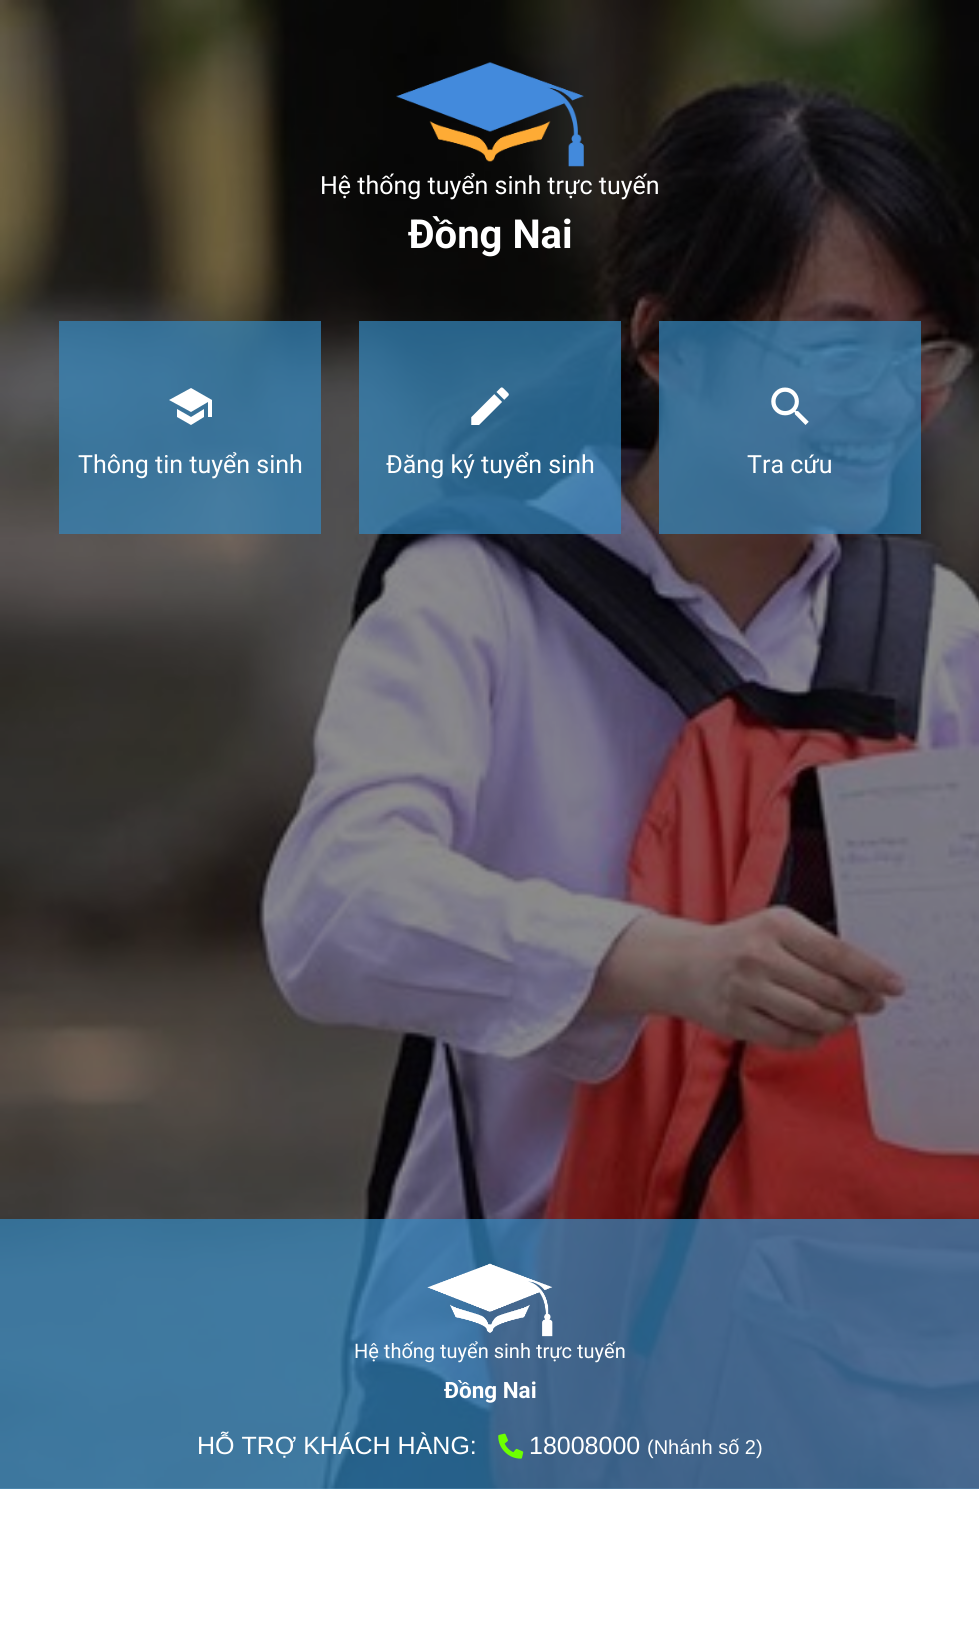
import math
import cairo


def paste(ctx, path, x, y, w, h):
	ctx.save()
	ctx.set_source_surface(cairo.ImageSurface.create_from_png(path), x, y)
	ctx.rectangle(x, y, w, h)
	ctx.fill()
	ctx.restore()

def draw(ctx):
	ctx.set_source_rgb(1, 1, 1)
	ctx.paint()
	paste(ctx, 'media/1.png', 0, 0, 979, 1489)
	paste(ctx, 'media/2.png', 396, 62, 188, 105)
	ctx.select_font_face('Roboto')
	ctx.set_font_size(25)
	ctx.set_source_rgb(1, 1, 1)
	ctx.move_to(320, 194)
	ctx.show_text('Hệ thống tuyển sinh trực tuyến')
	ctx.select_font_face('Roboto', cairo.FONT_SLANT_NORMAL, cairo.FONT_WEIGHT_BOLD)
	ctx.set_font_size(40)
	ctx.move_to(408, 248)
	ctx.show_text('Đồng Nai')
	ctx.set_source_rgba(0.204, 0.533, 0.749, 0.7)
	ctx.rectangle(59, 321, 262, 213)
	ctx.fill()
	ctx.set_source_rgb(1, 1, 1)
	ctx.new_path()
	ctx.move_to(177, 409)
	ctx.line_to(191, 417)
	ctx.line_to(204, 409)
	ctx.line_to(204, 417)
	ctx.line_to(191, 425)
	ctx.line_to(177, 417)
	ctx.close_path()
	ctx.move_to(191, 388)
	ctx.line_to(212, 400)
	ctx.line_to(212, 417)
	ctx.line_to(208, 417)
	ctx.line_to(208, 402)
	ctx.line_to(191, 412)
	ctx.line_to(169, 400)
	ctx.close_path()
	ctx.fill()
	ctx.select_font_face('Roboto')
	ctx.set_font_size(25)
	ctx.move_to(78, 473)
	ctx.show_text('Thông tin tuyển sinh')
	ctx.set_source_rgba(0.204, 0.533, 0.749, 0.7)
	ctx.rectangle(359, 321, 262, 213)
	ctx.fill()
	paste(ctx, 'media/3.png', 471, 387, 38, 38)
	ctx.set_source_rgb(1, 1, 1)
	ctx.move_to(386, 473)
	ctx.show_text('Đăng ký tuyển sinh')
	ctx.set_source_rgba(0.204, 0.533, 0.749, 0.7)
	ctx.rectangle(659, 321, 262, 213)
	ctx.fill()
	paste(ctx, 'media/4.png', 771, 387, 38, 38)
	ctx.set_source_rgb(1, 1, 1)
	ctx.move_to(747, 473)
	ctx.show_text('Tra cứu')
	ctx.set_source_rgba(0.204, 0.533, 0.749, 0.7)
	ctx.rectangle(0, 1219, 979, 270)
	ctx.fill()
	paste(ctx, 'media/5.png', 427, 1263, 126, 74)
	ctx.set_font_size(20)
	ctx.set_source_rgb(1, 1, 1)
	ctx.move_to(354, 1358)
	ctx.show_text('Hệ thống tuyển sinh trực tuyến')
	ctx.select_font_face('Roboto', cairo.FONT_SLANT_NORMAL, cairo.FONT_WEIGHT_BOLD)
	ctx.set_font_size(22.5)
	ctx.move_to(444, 1398)
	ctx.show_text('Đồng Nai')
	ctx.select_font_face('Liberation Sans')
	ctx.set_font_size(25)
	ctx.move_to(197, 1454)
	ctx.show_text('HỖ TRỢ KHÁCH HÀNG:')
	paste(ctx, 'media/6.png', 498, 1433, 26, 26)
	ctx.move_to(529, 1454)
	ctx.show_text('18008000')
	ctx.set_font_size(20)
	ctx.move_to(647, 1454)
	ctx.show_text('(Nhánh số 2)')


surface = cairo.ImageSurface(cairo.FORMAT_RGB24, 979, 1625)
ctx = cairo.Context(surface)
options = cairo.FontOptions()
options.set_hint_metrics(cairo.HINT_METRICS_OFF)
options.set_hint_style(cairo.HINT_STYLE_NONE)
ctx.set_font_options(options)
ctx.set_miter_limit(4)
draw(ctx)
surface.write_to_png('image.png')
